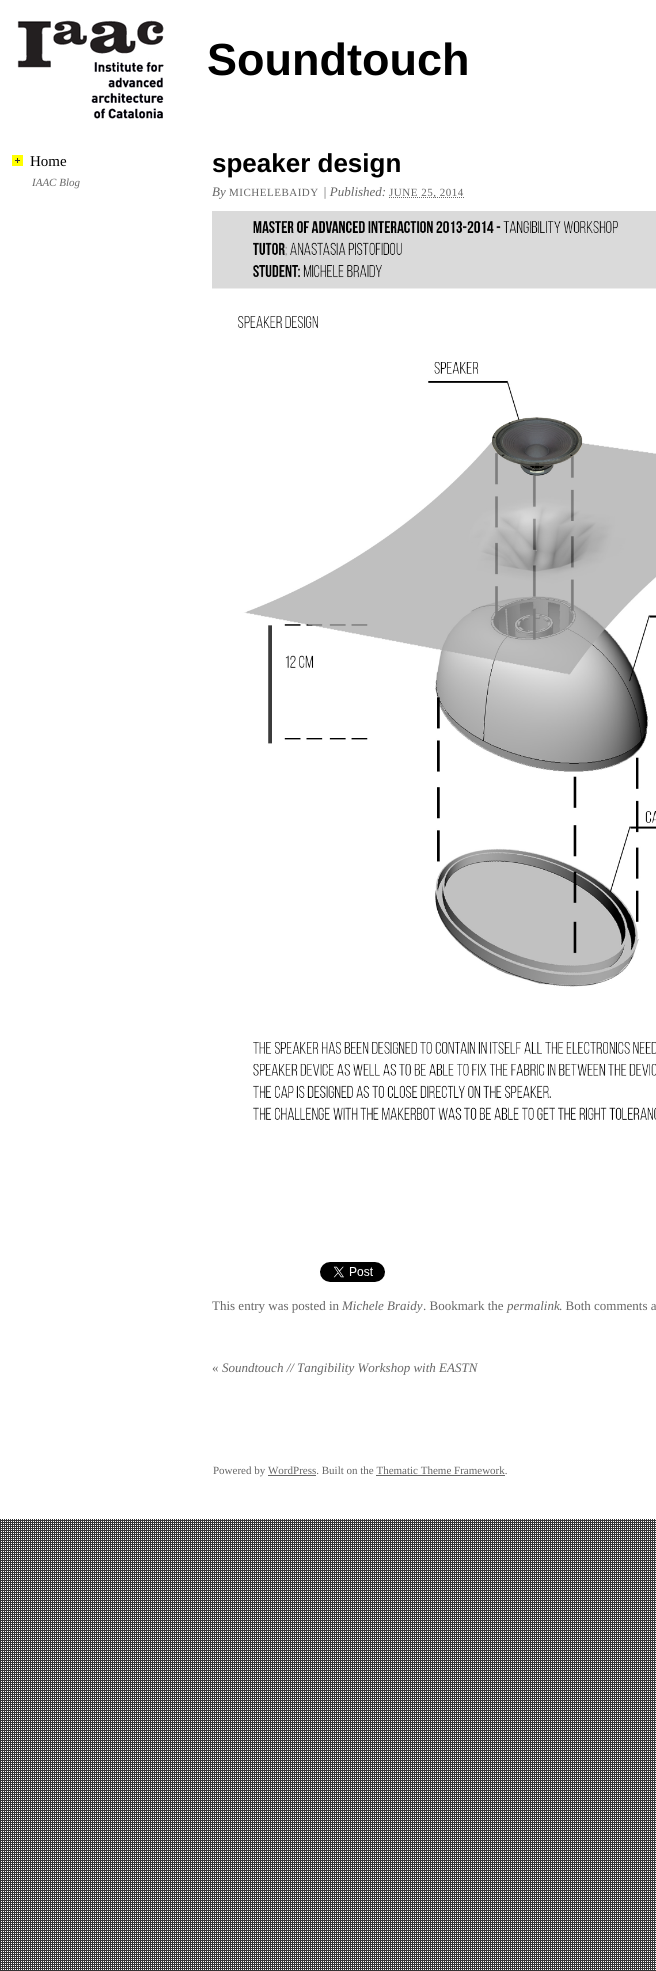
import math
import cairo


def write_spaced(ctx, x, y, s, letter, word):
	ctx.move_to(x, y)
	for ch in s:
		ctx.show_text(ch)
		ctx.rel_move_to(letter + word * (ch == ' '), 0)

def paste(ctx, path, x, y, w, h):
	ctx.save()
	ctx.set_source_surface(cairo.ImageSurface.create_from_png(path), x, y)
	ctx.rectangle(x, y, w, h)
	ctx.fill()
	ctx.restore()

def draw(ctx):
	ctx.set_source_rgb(1, 1, 1)
	ctx.paint()
	paste(ctx, 'media/1.png', 0, 1519, 656, 452)
	paste(ctx, 'media/2.png', 17, 20, 147, 99)
	ctx.select_font_face('Liberation Sans', cairo.FONT_SLANT_NORMAL, cairo.FONT_WEIGHT_BOLD)
	ctx.set_font_size(45)
	ctx.set_source_rgb(0, 0, 0)
	ctx.move_to(207, 75)
	ctx.show_text('Soundtouch')
	paste(ctx, 'media/3.png', 12, 155, 11, 11)
	ctx.select_font_face('Liberation Serif')
	ctx.set_font_size(15)
	ctx.move_to(30, 166)
	ctx.show_text('Home')
	ctx.select_font_face('Liberation Serif', cairo.FONT_SLANT_ITALIC)
	ctx.set_font_size(11)
	ctx.set_source_rgb(0.4, 0.4, 0.4)
	ctx.move_to(32, 186)
	ctx.show_text('IAAC Blog')
	ctx.select_font_face('Liberation Sans', cairo.FONT_SLANT_NORMAL, cairo.FONT_WEIGHT_BOLD)
	ctx.set_font_size(26)
	ctx.set_source_rgb(0, 0, 0)
	ctx.move_to(212, 172)
	ctx.show_text('speaker design')
	ctx.select_font_face('Liberation Serif', cairo.FONT_SLANT_ITALIC)
	ctx.set_font_size(13)
	ctx.set_source_rgb(0.4, 0.4, 0.4)
	ctx.move_to(212, 196)
	ctx.show_text('By')
	ctx.select_font_face('Liberation Serif')
	ctx.set_font_size(11)
	write_spaced(ctx, 229, 196, 'MICHELEBAIDY', 0.5, 0)
	ctx.select_font_face('Liberation Serif', cairo.FONT_SLANT_ITALIC)
	ctx.set_font_size(13)
	ctx.move_to(323, 196)
	ctx.show_text('| Published:')
	ctx.new_path()
	ctx.move_to(389, 197.5)
	ctx.line_to(464, 197.5)
	ctx.set_line_width(1)
	ctx.set_dash([1, 1])
	ctx.stroke()
	ctx.select_font_face('Liberation Serif')
	ctx.set_font_size(11)
	write_spaced(ctx, 389, 196, 'JUNE 25, 2014', 0.5, 0)
	paste(ctx, 'media/4.png', 212, 211, 444, 909)
	paste(ctx, 'media/5.png', 320, 1262, 65, 20)
	ctx.set_font_size(13)
	ctx.move_to(212, 1310)
	ctx.show_text('This entry was posted in')
	ctx.select_font_face('Liberation Serif', cairo.FONT_SLANT_ITALIC)
	ctx.move_to(342, 1310)
	ctx.show_text('Michele Braidy')
	ctx.select_font_face('Liberation Serif')
	ctx.move_to(423, 1310)
	ctx.show_text('. Bookmark the')
	ctx.select_font_face('Liberation Serif', cairo.FONT_SLANT_ITALIC)
	ctx.move_to(507, 1310)
	ctx.show_text('permalink')
	ctx.select_font_face('Liberation Serif')
	ctx.move_to(559, 1310)
	ctx.show_text('. Both comments a')
	ctx.move_to(212, 1372)
	ctx.show_text('«')
	ctx.select_font_face('Liberation Serif', cairo.FONT_SLANT_ITALIC)
	ctx.move_to(222, 1372)
	ctx.show_text('Soundtouch // Tangibility Workshop with EASTN')
	ctx.select_font_face('Liberation Serif')
	ctx.set_font_size(11)
	ctx.move_to(213, 1474)
	ctx.show_text('Powered by WordPress. Built on the Thematic Theme Framework.')
	ctx.rectangle(268, 1475, 48, 1)
	ctx.fill()
	ctx.rectangle(376, 1475, 129, 1)
	ctx.fill()


surface = cairo.ImageSurface(cairo.FORMAT_RGB24, 656, 1971)
ctx = cairo.Context(surface)
options = cairo.FontOptions()
options.set_hint_metrics(cairo.HINT_METRICS_OFF)
options.set_hint_style(cairo.HINT_STYLE_NONE)
ctx.set_font_options(options)
ctx.set_miter_limit(4)
draw(ctx)
surface.write_to_png('image.png')
